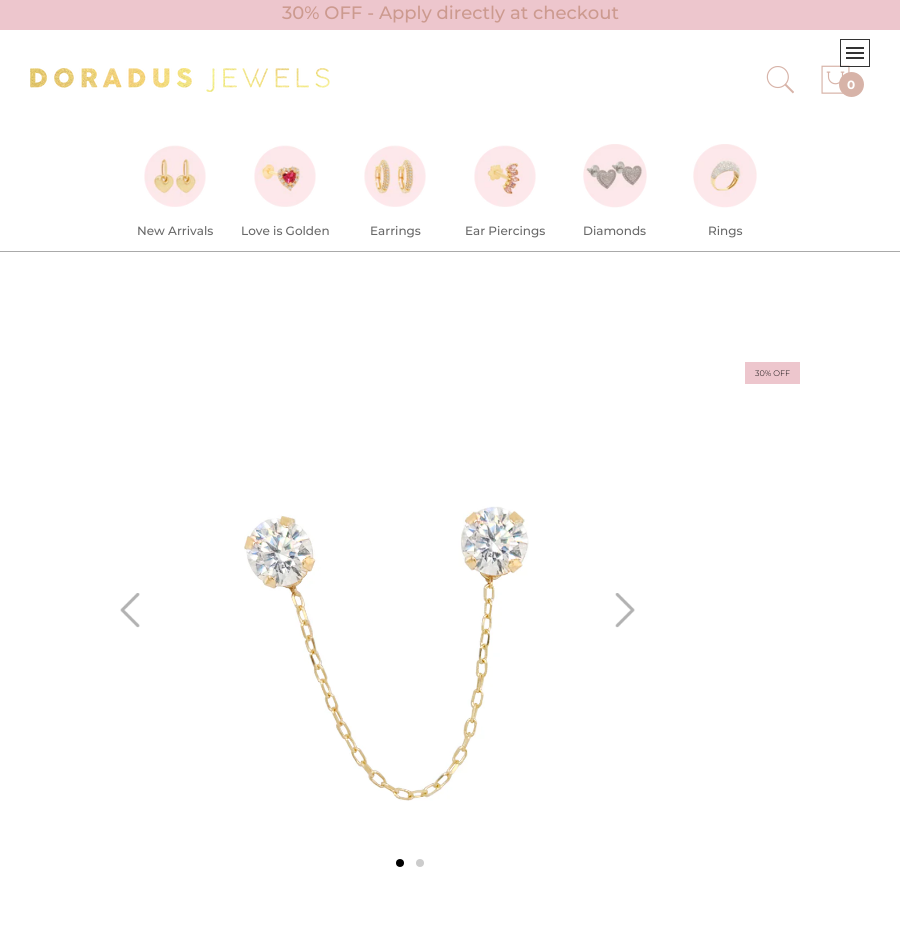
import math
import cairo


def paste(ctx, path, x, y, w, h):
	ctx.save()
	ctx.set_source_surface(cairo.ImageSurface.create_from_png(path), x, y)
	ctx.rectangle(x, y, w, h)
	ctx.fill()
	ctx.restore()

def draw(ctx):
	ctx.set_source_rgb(1, 1, 1)
	ctx.paint()
	ctx.set_source_rgb(0.929, 0.776, 0.804)
	ctx.rectangle(0, 0, 900, 30)
	ctx.fill()
	ctx.select_font_face('Montserrat Medium')
	ctx.set_font_size(18)
	ctx.set_source_rgb(0.8, 0.604, 0.561)
	ctx.move_to(282, 19)
	ctx.show_text('30% OFF - Apply directly at checkout')
	ctx.set_source_rgb(0.667, 0.667, 0.667)
	ctx.rectangle(0, 251, 900, 1)
	ctx.fill()
	paste(ctx, 'media/3.png', 821, 65, 29, 29)
	ctx.rectangle(840.5, 39.5, 29, 27)
	ctx.set_source_rgb(0.2, 0.2, 0.2)
	ctx.set_line_width(1)
	ctx.stroke()
	ctx.rectangle(846, 47, 18, 2)
	ctx.rectangle(846, 52, 18, 2)
	ctx.rectangle(846, 57, 18, 2)
	ctx.fill()
	paste(ctx, 'media/1.png', 30, 68, 300, 24)
	paste(ctx, 'media/2.png', 766, 66, 28, 28)
	ctx.set_source_rgb(0.843, 0.702, 0.659)
	ctx.arc(851.5, 84.5, 12.5, 0, 2 * math.pi)
	ctx.fill()
	ctx.select_font_face('Montserrat', cairo.FONT_SLANT_NORMAL, cairo.FONT_WEIGHT_BOLD)
	ctx.set_font_size(12)
	ctx.set_source_rgb(1, 1, 1)
	ctx.move_to(847, 89)
	ctx.show_text('0')
	paste(ctx, 'media/4.png', 144, 145, 62, 62)
	ctx.select_font_face('Montserrat Medium')
	ctx.set_source_rgb(0.408, 0.408, 0.408)
	ctx.move_to(137, 235)
	ctx.show_text('New Arrivals')
	paste(ctx, 'media/5.png', 254, 145, 62, 62)
	ctx.move_to(241, 235)
	ctx.show_text('Love is Golden')
	paste(ctx, 'media/6.png', 364, 145, 62, 62)
	ctx.move_to(370, 235)
	ctx.show_text('Earrings')
	paste(ctx, 'media/7.png', 474, 145, 62, 62)
	ctx.move_to(465, 235)
	ctx.show_text('Ear Piercings')
	paste(ctx, 'media/8.png', 583, 144, 64, 64)
	ctx.move_to(583, 235)
	ctx.show_text('Diamonds')
	paste(ctx, 'media/9.png', 693, 144, 64, 64)
	ctx.move_to(708, 235)
	ctx.show_text('Rings')
	ctx.set_source_rgb(0.929, 0.776, 0.804)
	ctx.rectangle(745, 362, 55, 22)
	ctx.fill()
	ctx.select_font_face('Montserrat Light')
	ctx.set_font_size(8)
	ctx.set_source_rgb(0, 0, 0)
	ctx.move_to(755, 376)
	ctx.show_text('30% OFF')
	paste(ctx, 'media/10.png', 120, 593, 20, 35)
	paste(ctx, 'media/11.png', 244, 506, 285, 295)
	paste(ctx, 'media/12.png', 615, 593, 20, 35)
	ctx.arc(400, 863, 4, 0, 2 * math.pi)
	ctx.fill()
	ctx.set_source_rgb(0.8, 0.8, 0.8)
	ctx.arc(420, 863, 4, 0, 2 * math.pi)
	ctx.fill()


surface = cairo.ImageSurface(cairo.FORMAT_RGB24, 900, 930)
ctx = cairo.Context(surface)
options = cairo.FontOptions()
options.set_hint_metrics(cairo.HINT_METRICS_OFF)
options.set_hint_style(cairo.HINT_STYLE_NONE)
ctx.set_font_options(options)
ctx.set_miter_limit(4)
draw(ctx)
surface.write_to_png('image.png')
